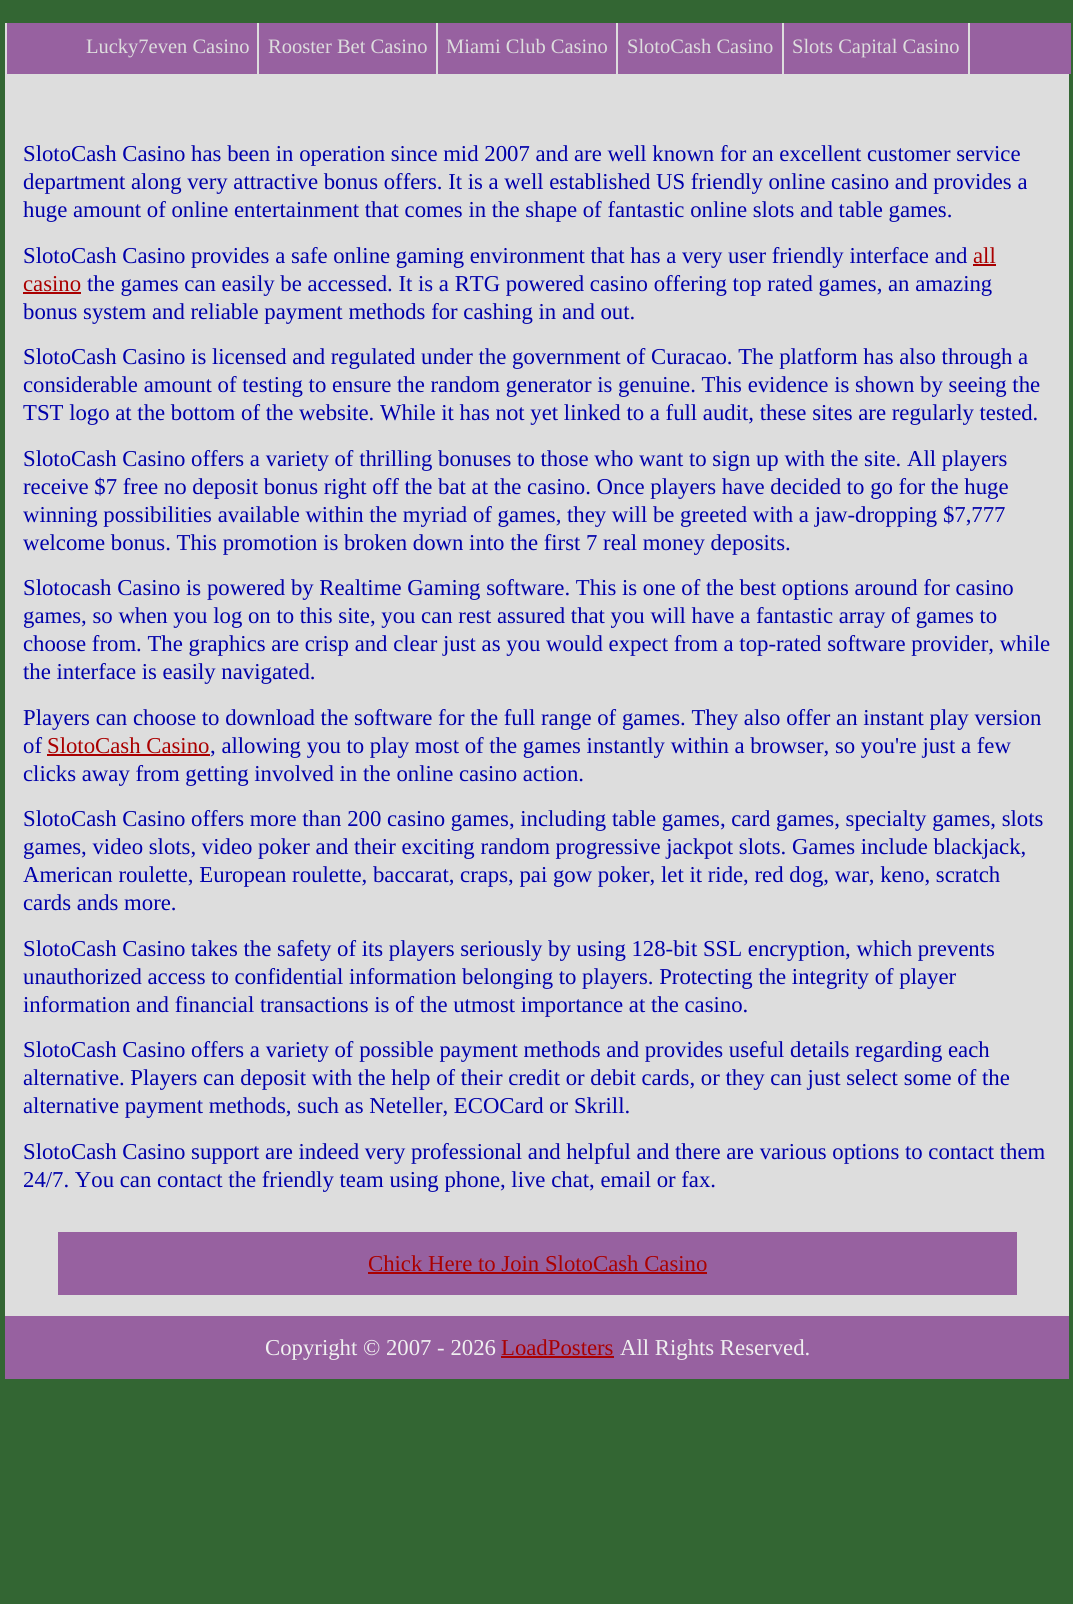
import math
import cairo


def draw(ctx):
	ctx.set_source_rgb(0.2, 0.4, 0.2)
	ctx.paint()
	ctx.set_source_rgb(0.867, 0.867, 0.867)
	ctx.rectangle(5, 23, 1064, 1293)
	ctx.fill()
	ctx.set_source_rgb(0.592, 0.38, 0.627)
	ctx.rectangle(7, 23, 1064, 51)
	ctx.fill()
	ctx.set_source_rgb(0.867, 0.867, 0.867)
	ctx.rectangle(257, 23, 2, 51)
	ctx.fill()
	ctx.select_font_face('Liberation Serif')
	ctx.set_font_size(20.5)
	ctx.move_to(86, 53)
	ctx.show_text('Lucky7even Casino')
	ctx.rectangle(436, 23, 2, 51)
	ctx.fill()
	ctx.move_to(268, 53)
	ctx.show_text('Rooster Bet Casino')
	ctx.rectangle(616, 23, 2, 51)
	ctx.fill()
	ctx.move_to(446, 53)
	ctx.show_text('Miami Club Casino')
	ctx.rectangle(782, 23, 2, 51)
	ctx.fill()
	ctx.move_to(627, 53)
	ctx.show_text('SlotoCash Casino')
	ctx.rectangle(968, 23, 2, 51)
	ctx.fill()
	ctx.move_to(792, 53)
	ctx.show_text('Slots Capital Casino')
	ctx.set_font_size(22.75)
	ctx.set_source_rgb(0, 0, 0.667)
	for x, y, s in [
		(23, 161, 'SlotoCash Casino has been in operation since mid 2007 and are well known for an excellent customer service'),
		(23, 189, 'department along very attractive bonus offers. It is a well established US friendly online casino and provides a'),
		(23, 217, 'huge amount of online entertainment that comes in the shape of fantastic online slots and table games.'),
		(23, 263, 'SlotoCash Casino provides a safe online gaming environment that has a very user friendly interface and'),
	]:
		ctx.move_to(x, y)
		ctx.show_text(s)
	ctx.set_source_rgb(0.667, 0, 0)
	ctx.move_to(973, 263)
	ctx.show_text('all')
	ctx.rectangle(973, 264, 23, 2)
	ctx.fill()
	ctx.move_to(23, 291)
	ctx.show_text('casino')
	ctx.rectangle(23, 292, 58, 2)
	ctx.fill()
	ctx.set_source_rgb(0, 0, 0.667)
	for x, y, s in [
		(87, 291, 'the games can easily be accessed. It is a RTG powered casino offering top rated games, an amazing'),
		(23, 319, 'bonus system and reliable payment methods for cashing in and out.'),
		(23, 364, 'SlotoCash Casino is licensed and regulated under the government of Curacao. The platform has also through a'),
		(23, 392, 'considerable amount of testing to ensure the random generator is genuine. This evidence is shown by seeing the'),
		(23, 420, 'TST logo at the bottom of the website. While it has not yet linked to a full audit, these sites are regularly tested.'),
		(23, 466, 'SlotoCash Casino offers a variety of thrilling bonuses to those who want to sign up with the site. All players'),
		(23, 494, 'receive $7 free no deposit bonus right off the bat at the casino. Once players have decided to go for the huge'),
		(23, 522, 'winning possibilities available within the myriad of games, they will be greeted with a jaw-dropping $7,777'),
		(23, 550, 'welcome bonus. This promotion is broken down into the first 7 real money deposits.'),
		(23, 595, 'Slotocash Casino is powered by Realtime Gaming software. This is one of the best options around for casino'),
		(23, 623, 'games, so when you log on to this site, you can rest assured that you will have a fantastic array of games to'),
		(23, 651, 'choose from. The graphics are crisp and clear just as you would expect from a top-rated software provider, while'),
		(23, 679, 'the interface is easily navigated.'),
		(23, 725, 'Players can choose to download the software for the full range of games. They also offer an instant play version'),
		(23, 753, 'of'),
	]:
		ctx.move_to(x, y)
		ctx.show_text(s)
	ctx.set_source_rgb(0.667, 0, 0)
	ctx.move_to(47, 753)
	ctx.show_text('SlotoCash Casino')
	ctx.rectangle(47, 754, 163, 2)
	ctx.fill()
	ctx.set_source_rgb(0, 0, 0.667)
	for x, y, s in [
		(210, 753, ', allowing you to play most of the games instantly within a browser, so you\'re just a few'),
		(23, 781, 'clicks away from getting involved in the online casino action.'),
		(23, 826, 'SlotoCash Casino offers more than 200 casino games, including table games, card games, specialty games, slots'),
		(23, 854, 'games, video slots, video poker and their exciting random progressive jackpot slots. Games include blackjack,'),
		(23, 882, 'American roulette, European roulette, baccarat, craps, pai gow poker, let it ride, red dog, war, keno, scratch'),
		(23, 910, 'cards ands more.'),
		(23, 956, 'SlotoCash Casino takes the safety of its players seriously by using 128-bit SSL encryption, which prevents'),
		(23, 984, 'unauthorized access to confidential information belonging to players. Protecting the integrity of player'),
		(23, 1012, 'information and financial transactions is of the utmost importance at the casino.'),
		(23, 1057, 'SlotoCash Casino offers a variety of possible payment methods and provides useful details regarding each'),
		(23, 1085, 'alternative. Players can deposit with the help of their credit or debit cards, or they can just select some of the'),
		(23, 1113, 'alternative payment methods, such as Neteller, ECOCard or Skrill.'),
		(23, 1159, 'SlotoCash Casino support are indeed very professional and helpful and there are various options to contact them'),
		(23, 1187, '24/7. You can contact the friendly team using phone, live chat, email or fax.'),
	]:
		ctx.move_to(x, y)
		ctx.show_text(s)
	ctx.set_source_rgb(0.592, 0.38, 0.627)
	ctx.rectangle(58, 1232, 959, 63)
	ctx.fill()
	ctx.set_source_rgb(0.667, 0, 0)
	ctx.move_to(368, 1271)
	ctx.show_text('Chick Here to Join SlotoCash Casino')
	ctx.rectangle(368, 1272, 339, 2)
	ctx.fill()
	ctx.set_source_rgb(0.592, 0.38, 0.627)
	ctx.rectangle(5, 1316, 1064, 63)
	ctx.fill()
	ctx.set_source_rgb(0.941, 0.941, 0.941)
	ctx.move_to(265, 1355)
	ctx.show_text('Copyright © 2007 - 2026')
	ctx.set_source_rgb(0.667, 0, 0)
	ctx.move_to(501, 1355)
	ctx.show_text('LoadPosters')
	ctx.rectangle(501, 1356, 113, 2)
	ctx.fill()
	ctx.set_source_rgb(0.941, 0.941, 0.941)
	ctx.move_to(620, 1355)
	ctx.show_text('All Rights Reserved.')


surface = cairo.ImageSurface(cairo.FORMAT_RGB24, 1073, 1604)
ctx = cairo.Context(surface)
options = cairo.FontOptions()
options.set_hint_metrics(cairo.HINT_METRICS_OFF)
options.set_hint_style(cairo.HINT_STYLE_NONE)
ctx.set_font_options(options)
ctx.set_miter_limit(4)
draw(ctx)
surface.write_to_png('image.png')
